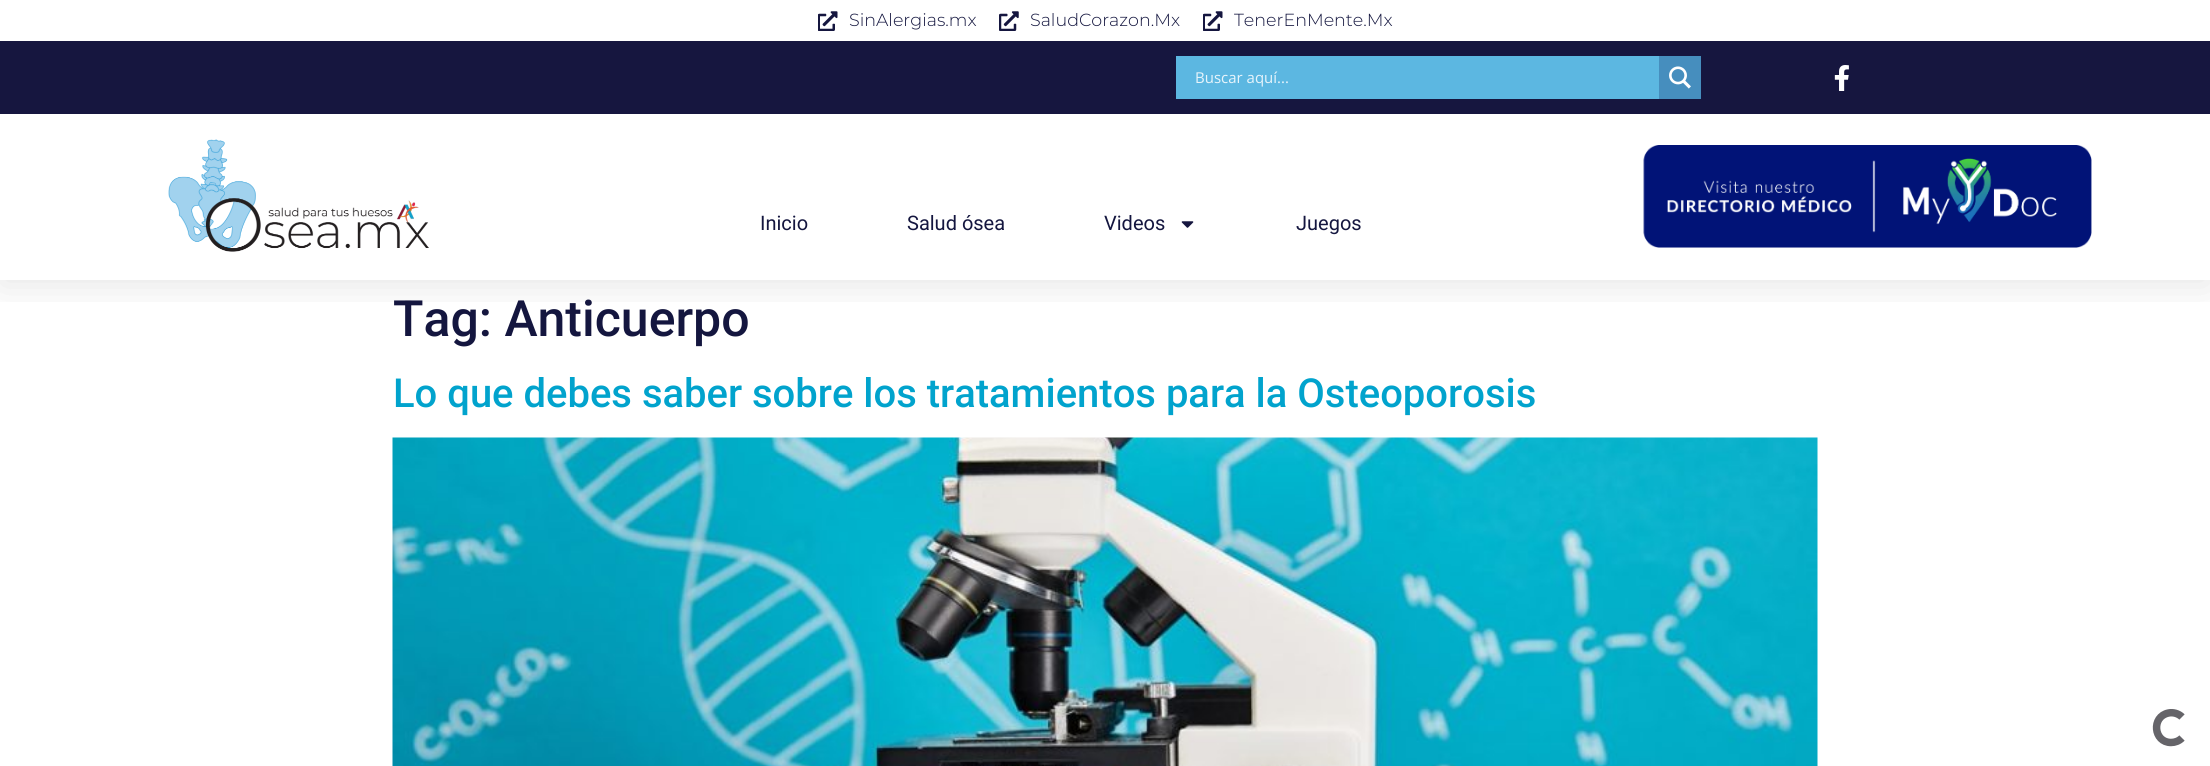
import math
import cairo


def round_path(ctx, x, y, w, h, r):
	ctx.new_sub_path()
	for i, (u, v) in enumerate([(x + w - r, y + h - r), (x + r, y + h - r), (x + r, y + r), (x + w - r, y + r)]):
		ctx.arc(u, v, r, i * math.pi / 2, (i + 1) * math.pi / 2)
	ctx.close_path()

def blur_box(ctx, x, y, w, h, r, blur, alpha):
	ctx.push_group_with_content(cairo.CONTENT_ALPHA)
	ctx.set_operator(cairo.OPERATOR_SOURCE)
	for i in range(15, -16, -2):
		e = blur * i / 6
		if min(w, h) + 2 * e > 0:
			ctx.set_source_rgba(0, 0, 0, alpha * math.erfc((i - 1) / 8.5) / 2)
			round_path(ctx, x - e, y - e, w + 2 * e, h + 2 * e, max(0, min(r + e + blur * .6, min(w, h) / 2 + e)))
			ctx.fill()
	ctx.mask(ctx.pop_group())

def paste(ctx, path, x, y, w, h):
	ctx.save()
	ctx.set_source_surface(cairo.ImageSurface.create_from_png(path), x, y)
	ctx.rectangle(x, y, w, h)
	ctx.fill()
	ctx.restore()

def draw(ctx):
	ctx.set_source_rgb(1, 1, 1)
	ctx.paint()
	ctx.save()
	ctx.rectangle(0, 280, 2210, 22)
	ctx.clip()
	ctx.set_source_rgb(0, 0, 0)
	blur_box(ctx, 0, 6, 2210, 280, 0, 19, 0.1)
	ctx.restore()
	paste(ctx, 'media/1.png', 818, 11, 20, 20)
	ctx.select_font_face('Montserrat Light')
	ctx.set_font_size(17.5)
	ctx.set_source_rgb(0.082, 0.086, 0.247)
	ctx.move_to(849, 26)
	ctx.show_text('SinAlergias.mx')
	paste(ctx, 'media/2.png', 999, 11, 20, 20)
	ctx.move_to(1030, 26)
	ctx.show_text('SaludCorazon.Mx')
	paste(ctx, 'media/1.png', 1203, 11, 20, 20)
	ctx.move_to(1234, 26)
	ctx.show_text('TenerEnMente.Mx')
	ctx.set_source_rgb(0.086, 0.086, 0.247)
	ctx.rectangle(0, 41, 2210, 73)
	ctx.fill()
	ctx.set_source_rgb(0.361, 0.718, 0.882)
	ctx.rectangle(1176, 56, 483, 43)
	ctx.fill()
	ctx.select_font_face('Open Sans')
	ctx.set_font_size(15)
	ctx.set_source_rgb(0.906, 0.957, 0.984)
	ctx.move_to(1195, 83)
	ctx.show_text('Buscar aquí...')
	ctx.set_source_rgb(0.275, 0.557, 0.745)
	ctx.rectangle(1659, 56, 42, 43)
	ctx.fill()
	paste(ctx, 'media/3.png', 1669, 66, 22, 23)
	paste(ctx, 'media/4.png', 1834, 65, 15, 26)
	paste(ctx, 'media/5.png', 168, 139, 261, 113)
	ctx.select_font_face('Roboto')
	ctx.set_font_size(20)
	ctx.set_source_rgb(0.082, 0.086, 0.247)
	for x, y, s in [
		(760, 230, 'Inicio'),
		(907, 230, 'Salud ósea'),
		(1104, 230, 'Videos'),
	]:
		ctx.move_to(x, y)
		ctx.show_text(s)
	paste(ctx, 'media/6.png', 1181, 221, 13, 7)
	ctx.move_to(1296, 230)
	ctx.show_text('Juegos')
	paste(ctx, 'media/7.png', 1643, 145, 449, 103)
	ctx.select_font_face('Roboto Medium')
	ctx.set_font_size(50)
	ctx.move_to(393, 336)
	ctx.show_text('Tag: Anticuerpo')
	ctx.set_font_size(40)
	ctx.set_source_rgb(0.004, 0.639, 0.804)
	ctx.move_to(393, 407)
	ctx.show_text('Lo que debes saber sobre los tratamientos para la Osteoporosis')
	paste(ctx, 'media/8.png', 392, 437, 1426, 329)
	ctx.new_path()
	ctx.move_to(2182, 738)
	ctx.curve_to(2179, 741, 2175, 742.5, 2171, 742.5)
	ctx.curve_to(2153.5, 742.5, 2151, 716.5, 2168.5, 713)
	ctx.curve_to(2173, 712, 2178.5, 713.5, 2182, 717)
	ctx.set_source_rgb(0.396, 0.392, 0.412)
	ctx.set_line_width(7.5)
	ctx.stroke()


surface = cairo.ImageSurface(cairo.FORMAT_RGB24, 2210, 766)
ctx = cairo.Context(surface)
options = cairo.FontOptions()
options.set_hint_metrics(cairo.HINT_METRICS_OFF)
options.set_hint_style(cairo.HINT_STYLE_NONE)
ctx.set_font_options(options)
ctx.set_miter_limit(4)
draw(ctx)
surface.write_to_png('image.png')
